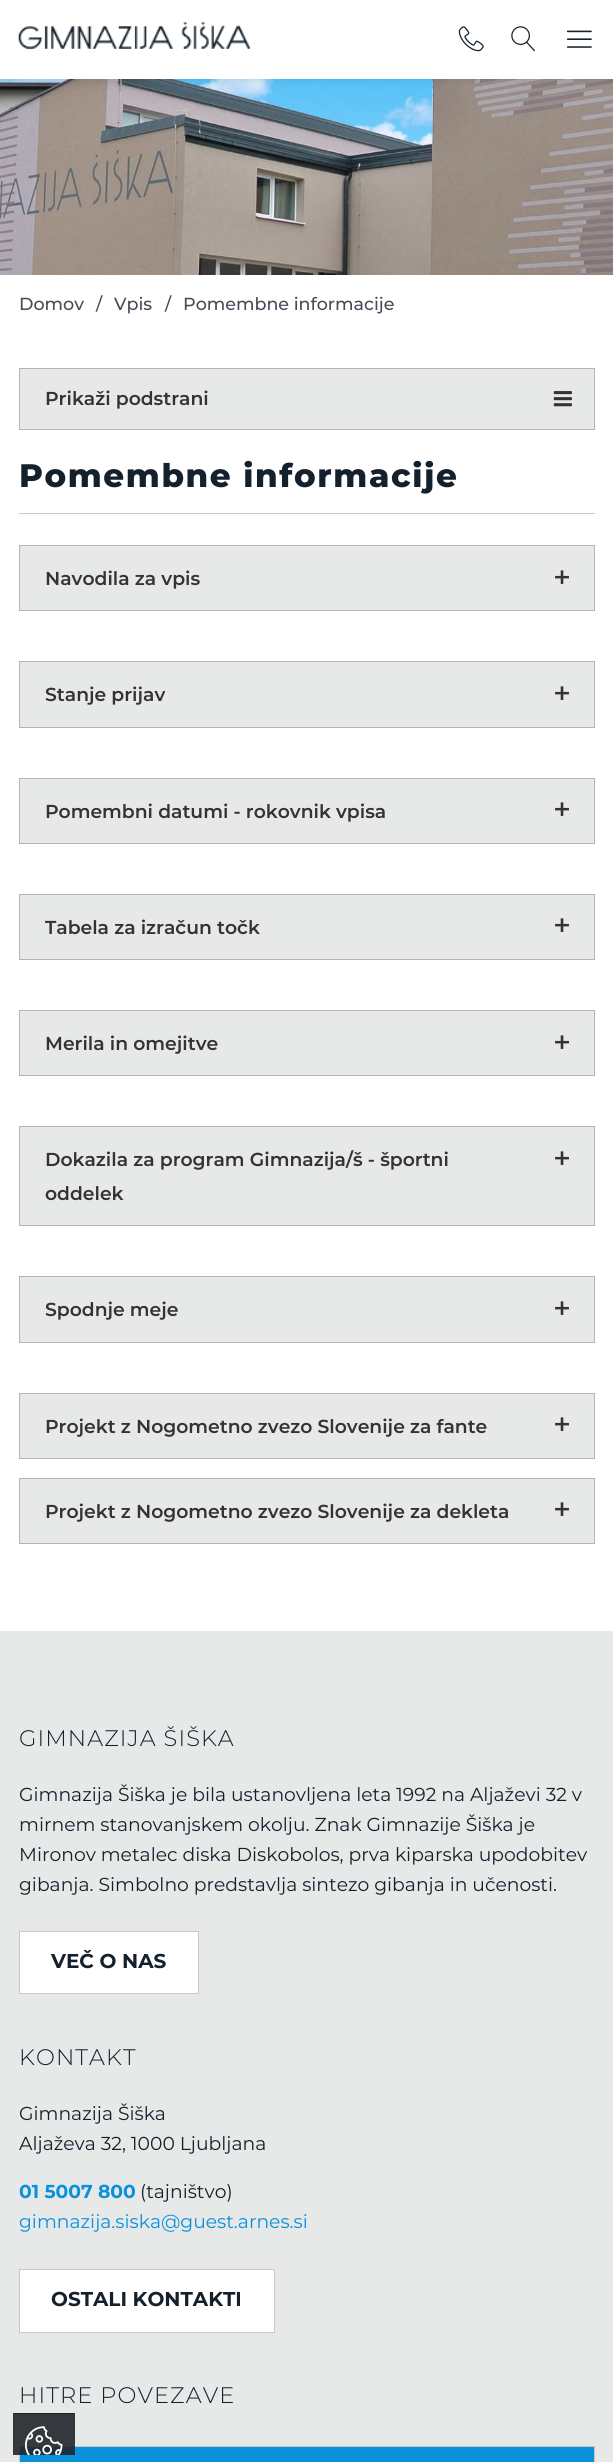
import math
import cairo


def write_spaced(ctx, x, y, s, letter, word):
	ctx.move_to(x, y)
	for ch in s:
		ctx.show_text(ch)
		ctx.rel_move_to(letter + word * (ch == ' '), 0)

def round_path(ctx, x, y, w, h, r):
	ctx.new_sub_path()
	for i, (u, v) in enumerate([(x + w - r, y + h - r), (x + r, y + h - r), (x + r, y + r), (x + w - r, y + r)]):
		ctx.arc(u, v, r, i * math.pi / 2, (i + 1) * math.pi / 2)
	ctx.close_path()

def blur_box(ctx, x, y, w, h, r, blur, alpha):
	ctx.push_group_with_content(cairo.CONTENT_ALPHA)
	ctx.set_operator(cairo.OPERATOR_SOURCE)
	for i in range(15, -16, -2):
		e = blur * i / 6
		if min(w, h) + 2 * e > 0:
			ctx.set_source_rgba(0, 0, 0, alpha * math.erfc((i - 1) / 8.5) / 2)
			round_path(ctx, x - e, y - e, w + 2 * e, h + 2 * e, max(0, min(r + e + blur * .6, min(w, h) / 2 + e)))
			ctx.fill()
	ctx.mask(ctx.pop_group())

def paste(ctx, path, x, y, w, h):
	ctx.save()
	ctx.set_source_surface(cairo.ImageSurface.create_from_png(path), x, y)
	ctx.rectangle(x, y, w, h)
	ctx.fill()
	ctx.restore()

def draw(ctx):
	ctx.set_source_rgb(1, 1, 1)
	ctx.paint()
	paste(ctx, 'media/5.png', 0, 79, 613, 196)
	ctx.set_source_rgb(0, 0, 0)
	blur_box(ctx, 0, 0, 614, 79, 0, 6, 0.12)
	ctx.set_source_rgb(1, 1, 1)
	ctx.rectangle(0, 0, 613, 79)
	ctx.fill()
	paste(ctx, 'media/1.png', 18, 22, 232, 27)
	paste(ctx, 'media/2.png', 458, 26, 26, 26)
	paste(ctx, 'media/3.png', 511, 26, 24, 26)
	paste(ctx, 'media/4.png', 566, 30, 26, 18)
	ctx.select_font_face('Montserrat Medium')
	ctx.set_font_size(17.5)
	ctx.set_source_rgb(0.267, 0.302, 0.341)
	for x, y, s in [
		(19, 310, 'Domov'),
		(96, 310, '/'),
		(114, 310, 'Vpis'),
		(165, 310, '/'),
		(183, 310, 'Pomembne informacije'),
	]:
		ctx.move_to(x, y)
		ctx.show_text(s)
	ctx.set_source_rgb(0.906, 0.91, 0.91)
	ctx.rectangle(19.5, 368.5, 575, 61)
	ctx.fill_preserve()
	ctx.set_source_rgb(0.706, 0.706, 0.706)
	ctx.set_line_width(1)
	ctx.stroke()
	ctx.select_font_face('Montserrat SemiBold')
	ctx.set_font_size(18.75)
	ctx.set_source_rgb(0.2, 0.2, 0.2)
	ctx.move_to(45, 405)
	ctx.show_text('Prikaži podstrani')
	paste(ctx, 'media/6.png', 553, 391, 19, 16)
	ctx.set_source_rgb(0.784, 0.784, 0.784)
	ctx.rectangle(19, 513, 576, 1)
	ctx.fill()
	ctx.select_font_face('Montserrat ExtraBold')
	ctx.set_font_size(32.5)
	ctx.set_source_rgb(0.082, 0.129, 0.176)
	write_spaced(ctx, 19, 487, 'Pomembne informacije', 1.6, 0)
	ctx.set_source_rgb(0.906, 0.91, 0.91)
	ctx.rectangle(19.5, 545.5, 575, 65)
	ctx.fill_preserve()
	ctx.set_source_rgb(0.706, 0.706, 0.706)
	ctx.stroke()
	ctx.select_font_face('Montserrat SemiBold')
	ctx.set_font_size(18.75)
	ctx.set_source_rgb(0.2, 0.2, 0.2)
	ctx.move_to(45, 585)
	ctx.show_text('Navodila za vpis')
	ctx.select_font_face('Montserrat Medium')
	ctx.set_font_size(31)
	ctx.move_to(553, 588)
	ctx.show_text('+')
	ctx.set_source_rgb(0.906, 0.91, 0.91)
	ctx.rectangle(19.5, 661.5, 575, 66)
	ctx.fill_preserve()
	ctx.set_source_rgb(0.706, 0.706, 0.706)
	ctx.stroke()
	ctx.select_font_face('Montserrat SemiBold')
	ctx.set_font_size(18.75)
	ctx.set_source_rgb(0.2, 0.2, 0.2)
	ctx.move_to(45, 701)
	ctx.show_text('Stanje prijav')
	ctx.select_font_face('Montserrat Medium')
	ctx.set_font_size(31)
	ctx.move_to(553, 704)
	ctx.show_text('+')
	ctx.set_source_rgb(0.906, 0.91, 0.91)
	ctx.rectangle(19.5, 778.5, 575, 65)
	ctx.fill_preserve()
	ctx.set_source_rgb(0.706, 0.706, 0.706)
	ctx.stroke()
	ctx.select_font_face('Montserrat SemiBold')
	ctx.set_font_size(18.75)
	ctx.set_source_rgb(0.2, 0.2, 0.2)
	ctx.move_to(45, 818)
	ctx.show_text('Pomembni datumi - rokovnik vpisa')
	ctx.select_font_face('Montserrat Medium')
	ctx.set_font_size(31)
	ctx.move_to(553, 820)
	ctx.show_text('+')
	ctx.set_source_rgb(0.906, 0.91, 0.91)
	ctx.rectangle(19.5, 894.5, 575, 65)
	ctx.fill_preserve()
	ctx.set_source_rgb(0.706, 0.706, 0.706)
	ctx.stroke()
	ctx.select_font_face('Montserrat SemiBold')
	ctx.set_font_size(18.75)
	ctx.set_source_rgb(0.2, 0.2, 0.2)
	ctx.move_to(45, 934)
	ctx.show_text('Tabela za izračun točk')
	ctx.select_font_face('Montserrat Medium')
	ctx.set_font_size(31)
	ctx.move_to(553, 936)
	ctx.show_text('+')
	ctx.set_source_rgb(0.906, 0.91, 0.91)
	ctx.rectangle(19.5, 1010.5, 575, 65)
	ctx.fill_preserve()
	ctx.set_source_rgb(0.706, 0.706, 0.706)
	ctx.stroke()
	ctx.select_font_face('Montserrat SemiBold')
	ctx.set_font_size(18.75)
	ctx.set_source_rgb(0.2, 0.2, 0.2)
	ctx.move_to(45, 1050)
	ctx.show_text('Merila in omejitve')
	ctx.select_font_face('Montserrat Medium')
	ctx.set_font_size(31)
	ctx.move_to(553, 1053)
	ctx.show_text('+')
	ctx.set_source_rgb(0.906, 0.91, 0.91)
	ctx.rectangle(19.5, 1126.5, 575, 99)
	ctx.fill_preserve()
	ctx.set_source_rgb(0.706, 0.706, 0.706)
	ctx.stroke()
	ctx.select_font_face('Montserrat SemiBold')
	ctx.set_font_size(18.75)
	ctx.set_source_rgb(0.2, 0.2, 0.2)
	ctx.move_to(45, 1166)
	ctx.show_text('Dokazila za program Gimnazija/š - športni')
	ctx.select_font_face('Montserrat Medium')
	ctx.set_font_size(31)
	ctx.move_to(553, 1169)
	ctx.show_text('+')
	ctx.select_font_face('Montserrat SemiBold')
	ctx.set_font_size(18.75)
	ctx.move_to(45, 1200)
	ctx.show_text('oddelek')
	ctx.set_source_rgb(0.906, 0.91, 0.91)
	ctx.rectangle(19.5, 1276.5, 575, 66)
	ctx.fill_preserve()
	ctx.set_source_rgb(0.706, 0.706, 0.706)
	ctx.stroke()
	ctx.set_source_rgb(0.2, 0.2, 0.2)
	ctx.move_to(45, 1316)
	ctx.show_text('Spodnje meje')
	ctx.select_font_face('Montserrat Medium')
	ctx.set_font_size(31)
	ctx.move_to(553, 1319)
	ctx.show_text('+')
	ctx.set_source_rgb(0.906, 0.91, 0.91)
	ctx.rectangle(19.5, 1393.5, 575, 65)
	ctx.fill_preserve()
	ctx.set_source_rgb(0.706, 0.706, 0.706)
	ctx.stroke()
	ctx.select_font_face('Montserrat SemiBold')
	ctx.set_font_size(18.75)
	ctx.set_source_rgb(0.2, 0.2, 0.2)
	ctx.move_to(45, 1433)
	ctx.show_text('Projekt z Nogometno zvezo Slovenije za fante')
	ctx.select_font_face('Montserrat Medium')
	ctx.set_font_size(31)
	ctx.move_to(553, 1435)
	ctx.show_text('+')
	ctx.set_source_rgb(0.906, 0.91, 0.91)
	ctx.rectangle(19.5, 1478.5, 575, 65)
	ctx.fill_preserve()
	ctx.set_source_rgb(0.706, 0.706, 0.706)
	ctx.stroke()
	ctx.select_font_face('Montserrat SemiBold')
	ctx.set_font_size(18.75)
	ctx.set_source_rgb(0.2, 0.2, 0.2)
	ctx.move_to(45, 1518)
	ctx.show_text('Projekt z Nogometno zvezo Slovenije za dekleta')
	ctx.select_font_face('Montserrat Medium')
	ctx.set_font_size(31)
	ctx.move_to(553, 1520)
	ctx.show_text('+')
	ctx.set_source_rgb(0.906, 0.91, 0.91)
	ctx.rectangle(0, 1631, 613, 831)
	ctx.fill()
	ctx.select_font_face('Montserrat Light')
	ctx.set_font_size(22.5)
	ctx.set_source_rgb(0.082, 0.129, 0.176)
	write_spaced(ctx, 19, 1746, 'GIMNAZIJA ŠIŠKA', 1.1, 0)
	ctx.select_font_face('Montserrat')
	ctx.set_font_size(18.75)
	for x, y, s in [
		(19, 1801, 'Gimnazija Šiška je bila ustanovljena leta 1992 na Aljaževi 32 v'),
		(19, 1831, 'mirnem stanovanjskem okolju. Znak Gimnazije Šiška je'),
		(19, 1861, 'Mironov metalec diska Diskobolos, prva kiparska upodobitev'),
		(19, 1891, 'gibanja. Simbolno predstavlja sintezo gibanja in učenosti.'),
	]:
		ctx.move_to(x, y)
		ctx.show_text(s)
	ctx.set_source_rgb(1, 1, 1)
	ctx.rectangle(19.5, 1931.5, 179, 62)
	ctx.fill_preserve()
	ctx.set_source_rgb(0.784, 0.784, 0.784)
	ctx.stroke()
	ctx.select_font_face('Montserrat', cairo.FONT_SLANT_NORMAL, cairo.FONT_WEIGHT_BOLD)
	ctx.set_font_size(20)
	ctx.set_source_rgb(0.082, 0.129, 0.176)
	ctx.move_to(51, 1968)
	ctx.show_text('VEČ O NAS')
	ctx.select_font_face('Montserrat Light')
	ctx.set_font_size(22.5)
	write_spaced(ctx, 19, 2065, 'KONTAKT', 1.1, 0)
	ctx.select_font_face('Montserrat')
	ctx.set_font_size(18.75)
	ctx.move_to(19, 2120)
	ctx.show_text('Gimnazija Šiška')
	ctx.move_to(19, 2150)
	ctx.show_text('Aljaževa 32, 1000 Ljubljana')
	ctx.select_font_face('Montserrat', cairo.FONT_SLANT_NORMAL, cairo.FONT_WEIGHT_BOLD)
	ctx.set_source_rgb(0.039, 0.569, 0.863)
	ctx.move_to(19, 2198)
	ctx.show_text('01 5007 800')
	ctx.select_font_face('Montserrat')
	ctx.set_source_rgb(0.082, 0.129, 0.176)
	ctx.move_to(140, 2198)
	ctx.show_text('(tajništvo)')
	ctx.set_source_rgb(0.039, 0.569, 0.863)
	ctx.move_to(19, 2228)
	ctx.show_text('gimnazija.siska@guest.arnes.si')
	ctx.set_source_rgb(1, 1, 1)
	ctx.rectangle(19.5, 2269.5, 255, 63)
	ctx.fill_preserve()
	ctx.set_source_rgb(0.784, 0.784, 0.784)
	ctx.stroke()
	ctx.select_font_face('Montserrat', cairo.FONT_SLANT_NORMAL, cairo.FONT_WEIGHT_BOLD)
	ctx.set_font_size(20)
	ctx.set_source_rgb(0.082, 0.129, 0.176)
	ctx.move_to(51, 2306)
	ctx.show_text('OSTALI KONTAKTI')
	ctx.select_font_face('Montserrat Light')
	ctx.set_font_size(22.5)
	write_spaced(ctx, 19, 2403, 'HITRE POVEZAVE', 1.1, 0)
	ctx.set_source_rgb(0.039, 0.569, 0.863)
	ctx.rectangle(19.5, 2446.5, 575, 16)
	ctx.fill_preserve()
	ctx.set_source_rgb(0.784, 0.784, 0.784)
	ctx.stroke()
	ctx.set_source_rgba(0.196, 0.227, 0.271, 0.5)
	ctx.rectangle(13, 2414, 62, 41)
	ctx.fill()
	ctx.set_source_rgb(0.125, 0.133, 0.149)
	ctx.rectangle(13, 2413, 62, 1)
	ctx.fill()
	ctx.set_source_rgba(0.125, 0.133, 0.149, 0.8)
	ctx.rectangle(13, 2414, 62, 41)
	ctx.fill()
	paste(ctx, 'media/7.png', 25, 2426, 38, 29)


surface = cairo.ImageSurface(cairo.FORMAT_RGB24, 613, 2462)
ctx = cairo.Context(surface)
options = cairo.FontOptions()
options.set_hint_metrics(cairo.HINT_METRICS_OFF)
options.set_hint_style(cairo.HINT_STYLE_NONE)
ctx.set_font_options(options)
ctx.set_miter_limit(4)
draw(ctx)
surface.write_to_png('image.png')
